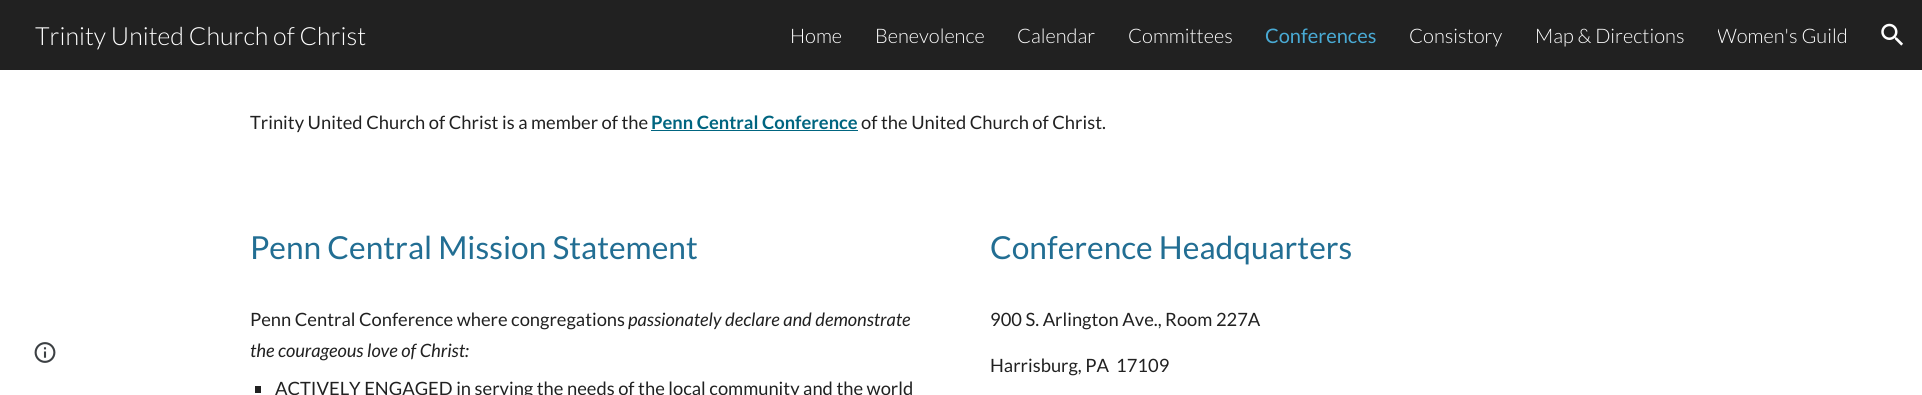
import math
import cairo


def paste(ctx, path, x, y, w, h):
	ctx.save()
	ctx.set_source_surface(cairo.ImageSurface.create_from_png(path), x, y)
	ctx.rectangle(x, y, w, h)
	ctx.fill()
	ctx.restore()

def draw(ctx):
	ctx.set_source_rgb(1, 1, 1)
	ctx.paint()
	ctx.set_source_rgb(0.129, 0.129, 0.129)
	ctx.rectangle(0, 0, 1922, 70)
	ctx.fill()
	ctx.select_font_face('Lato Light')
	ctx.set_font_size(25)
	ctx.set_source_rgb(1, 1, 1)
	ctx.move_to(35, 45)
	ctx.show_text('Trinity United Church of Christ')
	ctx.set_font_size(20)
	for x, y, s in [
		(790, 43, 'Home'),
		(875, 43, 'Benevolence'),
		(1017, 43, 'Calendar'),
		(1128, 43, 'Committees'),
	]:
		ctx.move_to(x, y)
		ctx.show_text(s)
	ctx.select_font_face('Lato')
	ctx.set_source_rgb(0.286, 0.667, 0.831)
	ctx.move_to(1265, 43)
	ctx.show_text('Conferences')
	ctx.select_font_face('Lato Light')
	ctx.set_source_rgb(1, 1, 1)
	ctx.move_to(1409, 43)
	ctx.show_text('Consistory')
	ctx.move_to(1535, 43)
	ctx.show_text('Map & Directions')
	ctx.save()
	ctx.rectangle(1718, 24, 130, 24)
	ctx.clip()
	ctx.move_to(1717, 43)
	ctx.show_text('Women\'s Guild')
	ctx.restore()
	paste(ctx, 'media/1.png', 1881, 23, 22, 23)
	paste(ctx, 'media/2.png', 34, 342, 22, 21)
	ctx.select_font_face('Lato')
	ctx.set_font_size(18.35)
	ctx.set_source_rgb(0.129, 0.129, 0.129)
	ctx.move_to(250, 129)
	ctx.show_text('Trinity United Church of Christ is a member of the')
	ctx.select_font_face('Lato', cairo.FONT_SLANT_NORMAL, cairo.FONT_WEIGHT_BOLD)
	ctx.set_source_rgb(0, 0.396, 0.502)
	ctx.move_to(651, 129)
	ctx.show_text('Penn Central Conference')
	ctx.rectangle(651, 130, 207, 1)
	ctx.fill()
	ctx.select_font_face('Lato')
	ctx.set_source_rgb(0.129, 0.129, 0.129)
	ctx.move_to(861, 129)
	ctx.show_text('of the United Church of Christ.')
	ctx.set_font_size(31.7)
	ctx.set_source_rgb(0.133, 0.431, 0.576)
	ctx.move_to(250, 259)
	ctx.show_text('Penn Central Mission Statement')
	ctx.set_font_size(18.35)
	ctx.set_source_rgb(0.129, 0.129, 0.129)
	ctx.move_to(250, 326)
	ctx.show_text('Penn Central Conference where congregations')
	ctx.select_font_face('Lato', cairo.FONT_SLANT_ITALIC)
	ctx.move_to(628, 326)
	ctx.show_text('passionately declare and demonstrate')
	ctx.move_to(250, 357)
	ctx.show_text('the courageous love of Christ:')
	ctx.rectangle(255, 386, 6, 7)
	ctx.fill()
	ctx.select_font_face('Lato')
	ctx.move_to(275, 395)
	ctx.show_text('ACTIVELY ENGAGED in serving the needs of the local community and the world')
	ctx.set_font_size(31.7)
	ctx.set_source_rgb(0.133, 0.431, 0.576)
	ctx.move_to(990, 259)
	ctx.show_text('Conference Headquarters')
	ctx.set_font_size(18.35)
	ctx.set_source_rgb(0.129, 0.129, 0.129)
	ctx.move_to(990, 326)
	ctx.show_text('900 S. Arlington Ave., Room 227A')
	ctx.move_to(990, 372)
	ctx.show_text('Harrisburg, PA  17109')


surface = cairo.ImageSurface(cairo.FORMAT_RGB24, 1922, 395)
ctx = cairo.Context(surface)
options = cairo.FontOptions()
options.set_hint_metrics(cairo.HINT_METRICS_OFF)
options.set_hint_style(cairo.HINT_STYLE_NONE)
ctx.set_font_options(options)
ctx.set_miter_limit(4)
draw(ctx)
surface.write_to_png('image.png')
